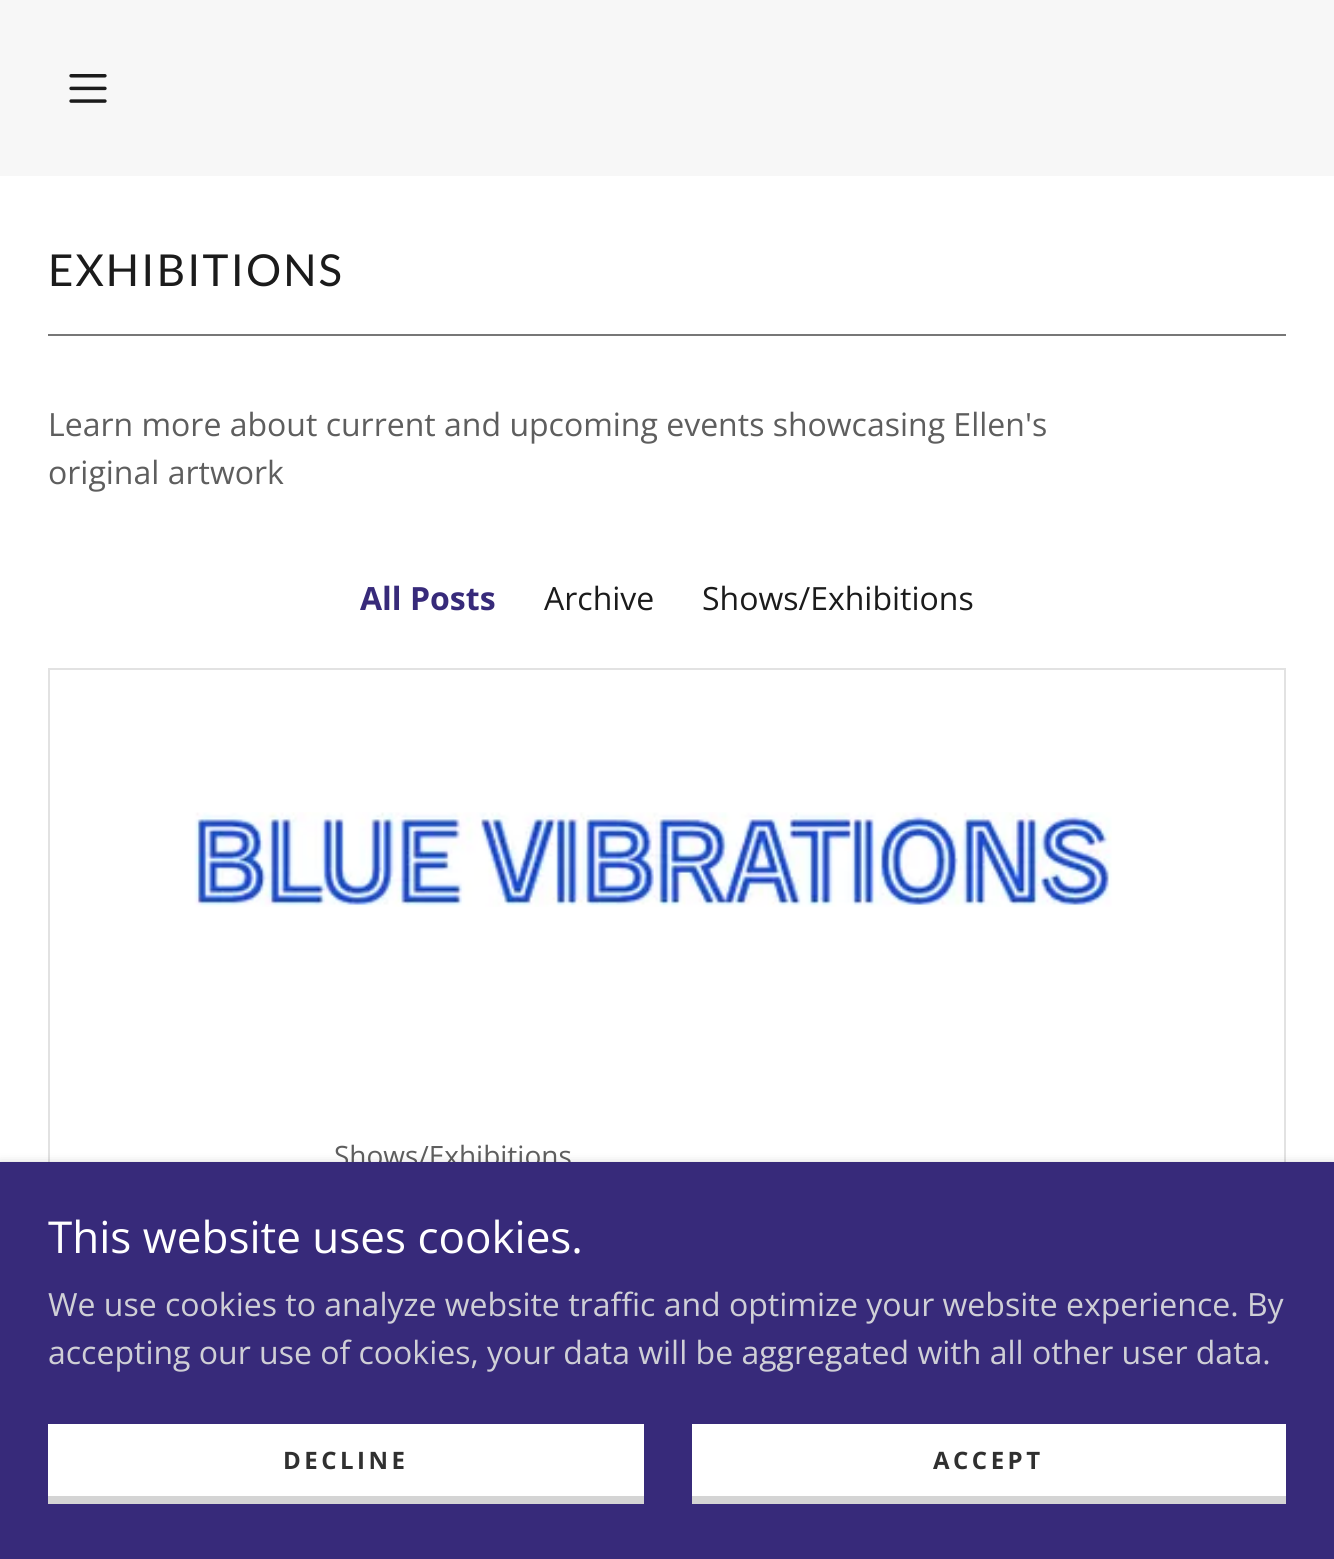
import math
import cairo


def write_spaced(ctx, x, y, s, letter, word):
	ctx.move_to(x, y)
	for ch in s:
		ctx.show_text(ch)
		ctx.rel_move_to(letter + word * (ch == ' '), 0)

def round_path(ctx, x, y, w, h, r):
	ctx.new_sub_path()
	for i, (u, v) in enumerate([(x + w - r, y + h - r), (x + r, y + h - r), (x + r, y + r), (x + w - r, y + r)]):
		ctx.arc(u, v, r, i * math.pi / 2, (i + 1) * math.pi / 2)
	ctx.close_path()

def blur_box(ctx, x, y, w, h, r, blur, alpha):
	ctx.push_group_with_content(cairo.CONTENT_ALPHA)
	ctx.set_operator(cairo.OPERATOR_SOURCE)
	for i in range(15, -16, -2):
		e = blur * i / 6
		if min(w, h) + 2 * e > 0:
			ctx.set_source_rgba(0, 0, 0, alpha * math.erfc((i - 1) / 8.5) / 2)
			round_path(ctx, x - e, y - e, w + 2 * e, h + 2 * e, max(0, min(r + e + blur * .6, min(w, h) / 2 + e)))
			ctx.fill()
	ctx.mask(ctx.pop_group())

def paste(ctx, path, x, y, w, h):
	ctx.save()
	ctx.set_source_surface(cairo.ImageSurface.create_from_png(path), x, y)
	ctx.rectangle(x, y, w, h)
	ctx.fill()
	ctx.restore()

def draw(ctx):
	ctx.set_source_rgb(1, 1, 1)
	ctx.paint()
	ctx.set_source_rgb(0.965, 0.965, 0.965)
	ctx.rectangle(0, 0, 1334, 176)
	ctx.fill()
	paste(ctx, 'media/1.png', 69, 74, 38, 29)
	ctx.select_font_face('Lato')
	ctx.set_font_size(44)
	ctx.set_source_rgb(0.106, 0.106, 0.106)
	write_spaced(ctx, 48, 286, 'EXHIBITIONS', 2, 0)
	ctx.set_source_rgb(0.467, 0.467, 0.467)
	ctx.rectangle(48, 334, 1238, 2)
	ctx.fill()
	ctx.select_font_face('Open Sans')
	ctx.set_font_size(32)
	ctx.set_source_rgb(0.369, 0.369, 0.369)
	ctx.move_to(48, 436)
	ctx.show_text('Learn more about current and upcoming events showcasing Ellen\'s')
	ctx.move_to(48, 484)
	ctx.show_text('original artwork')
	ctx.select_font_face('Open Sans', cairo.FONT_SLANT_NORMAL, cairo.FONT_WEIGHT_BOLD)
	ctx.set_source_rgb(0.216, 0.165, 0.478)
	ctx.move_to(360, 610)
	ctx.show_text('All Posts')
	ctx.select_font_face('Open Sans')
	ctx.set_source_rgb(0.106, 0.106, 0.106)
	ctx.move_to(544, 610)
	ctx.show_text('Archive')
	ctx.move_to(702, 610)
	ctx.show_text('Shows/Exhibitions')
	ctx.rectangle(49, 669, 1236, 816)
	ctx.set_source_rgb(0.886, 0.886, 0.886)
	ctx.stroke()
	paste(ctx, 'media/2.png', 194, 812, 918, 95)
	ctx.set_font_size(28)
	ctx.set_source_rgb(0.369, 0.369, 0.369)
	ctx.move_to(334, 1166)
	ctx.show_text('Shows/Exhibitions')
	ctx.set_source_rgb(0, 0, 0)
	blur_box(ctx, 0, 1166, 1334, 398, 0, 6, 0.3)
	ctx.set_source_rgb(0.216, 0.165, 0.478)
	ctx.rectangle(0, 1162, 1334, 397)
	ctx.fill()
	ctx.set_font_size(44)
	ctx.set_source_rgb(1, 1, 1)
	ctx.move_to(48, 1253)
	ctx.show_text('This website uses cookies.')
	ctx.set_font_size(32)
	ctx.set_source_rgb(0.812, 0.812, 0.839)
	ctx.move_to(48, 1316)
	ctx.show_text('We use cookies to analyze website traffic and optimize your website experience. By')
	ctx.move_to(48, 1364)
	ctx.show_text('accepting our use of cookies, your data will be aggregated with all other user data.')
	ctx.set_source_rgb(1, 1, 1)
	ctx.rectangle(48, 1424, 596, 72)
	ctx.fill()
	ctx.set_source_rgb(0.831, 0.831, 0.831)
	ctx.rectangle(48, 1496, 596, 8)
	ctx.fill()
	ctx.select_font_face('Open Sans', cairo.FONT_SLANT_NORMAL, cairo.FONT_WEIGHT_BOLD)
	ctx.set_font_size(24)
	ctx.set_source_rgb(0.188, 0.188, 0.188)
	write_spaced(ctx, 283, 1469, 'DECLINE', 3.5, 0)
	ctx.set_source_rgb(1, 1, 1)
	ctx.rectangle(692, 1424, 594, 72)
	ctx.fill()
	ctx.set_source_rgb(0.831, 0.831, 0.831)
	ctx.rectangle(692, 1496, 594, 8)
	ctx.fill()
	ctx.set_source_rgb(0.188, 0.188, 0.188)
	write_spaced(ctx, 933, 1469, 'ACCEPT', 3.5, 0)


surface = cairo.ImageSurface(cairo.FORMAT_RGB24, 1334, 1559)
ctx = cairo.Context(surface)
options = cairo.FontOptions()
options.set_hint_metrics(cairo.HINT_METRICS_OFF)
options.set_hint_style(cairo.HINT_STYLE_NONE)
ctx.set_font_options(options)
ctx.set_miter_limit(4)
draw(ctx)
surface.write_to_png('image.png')
